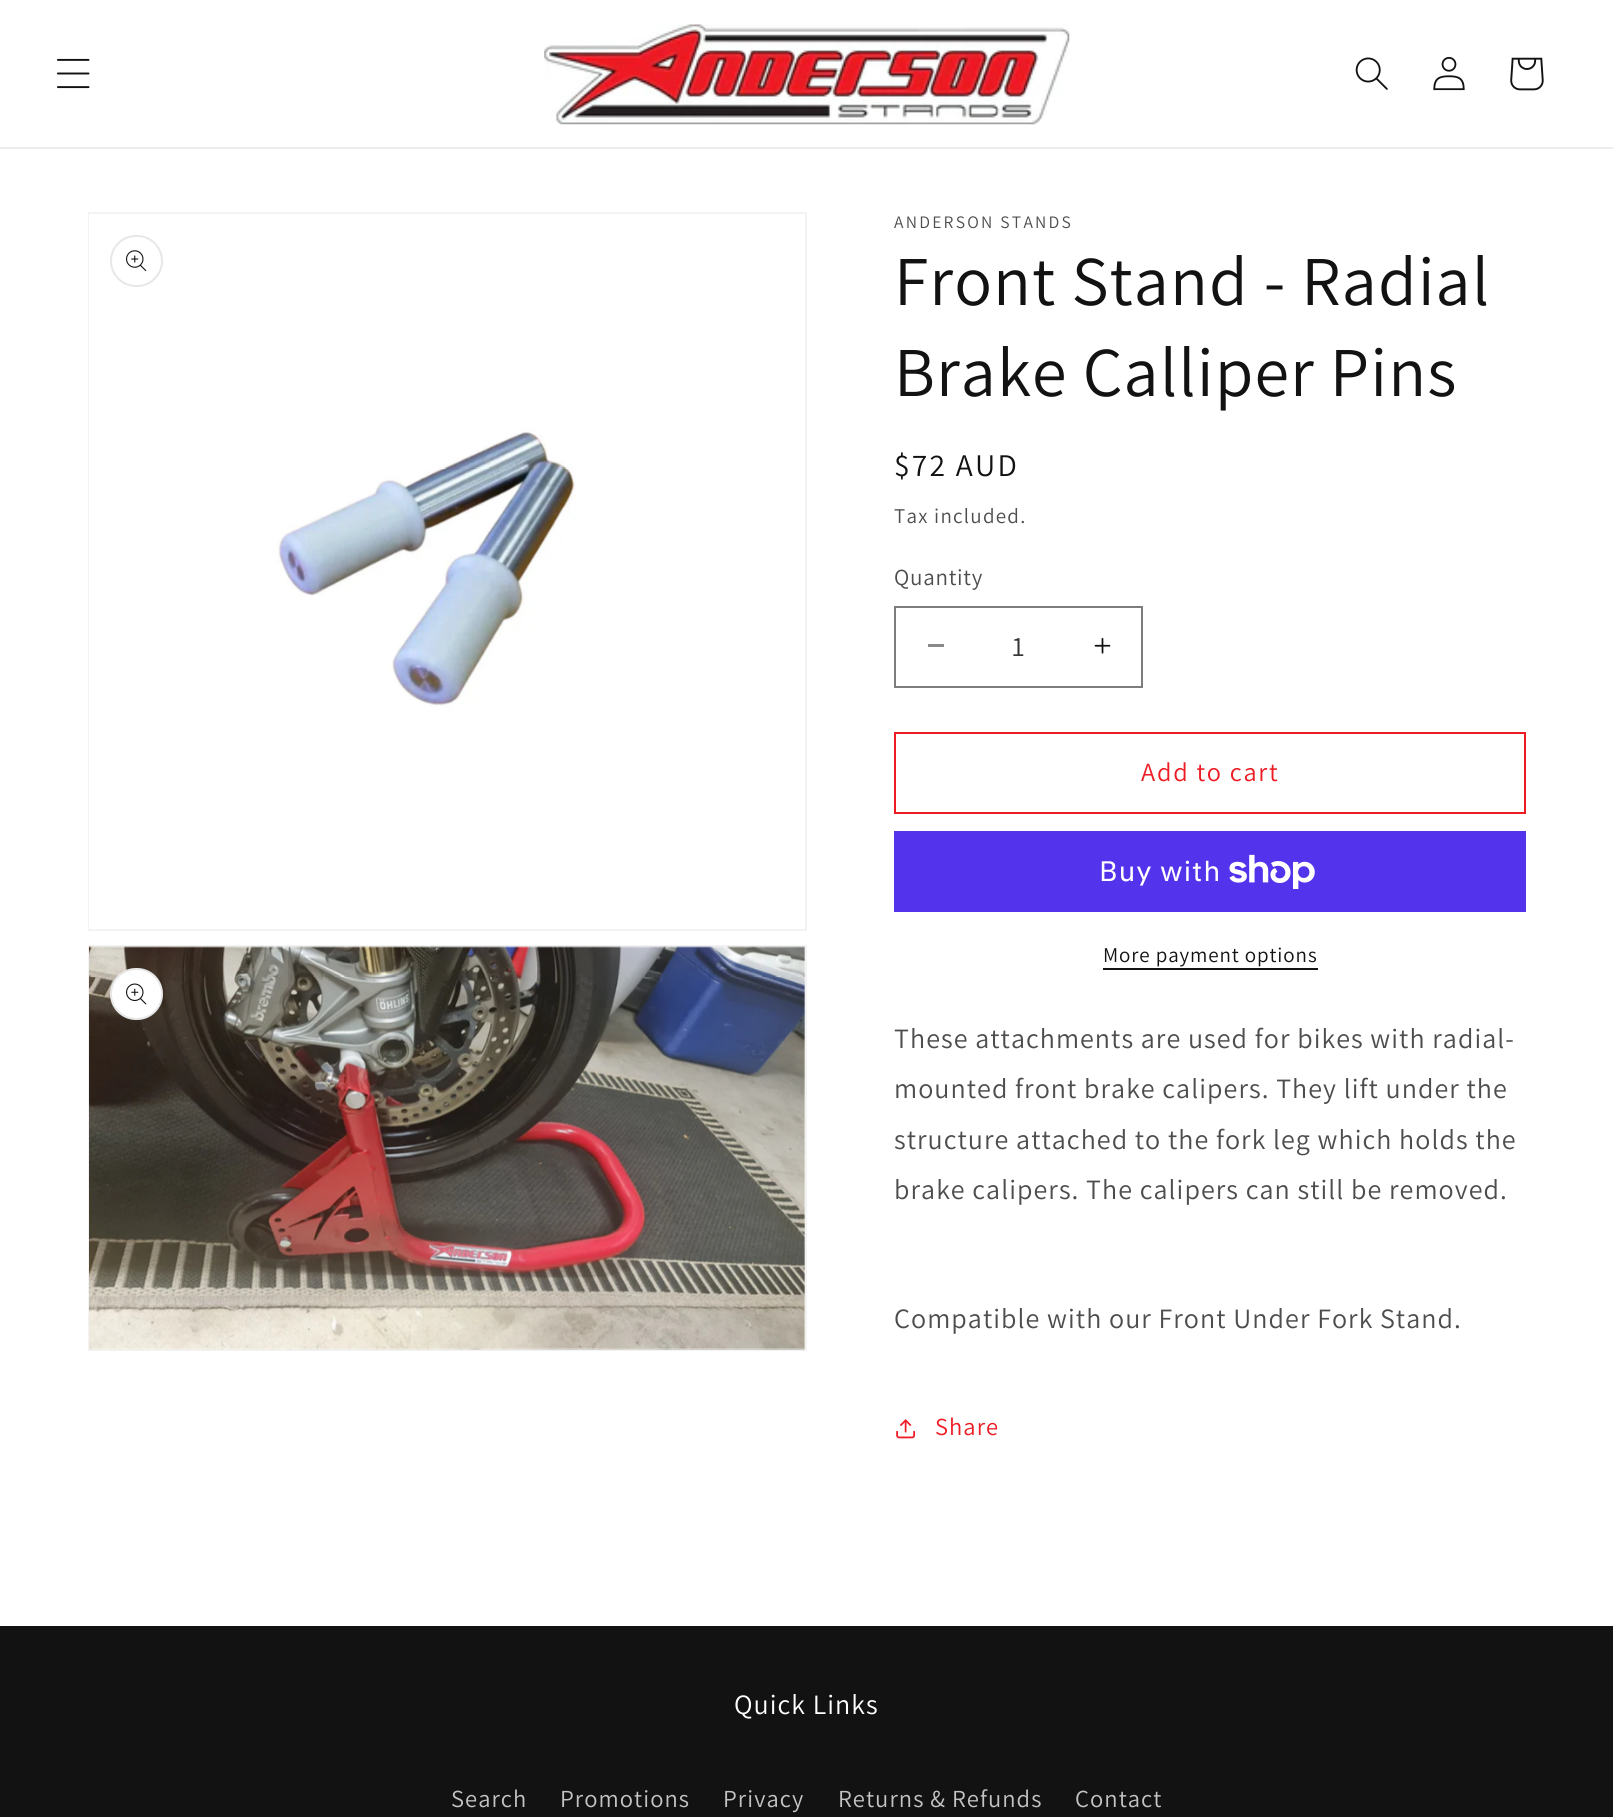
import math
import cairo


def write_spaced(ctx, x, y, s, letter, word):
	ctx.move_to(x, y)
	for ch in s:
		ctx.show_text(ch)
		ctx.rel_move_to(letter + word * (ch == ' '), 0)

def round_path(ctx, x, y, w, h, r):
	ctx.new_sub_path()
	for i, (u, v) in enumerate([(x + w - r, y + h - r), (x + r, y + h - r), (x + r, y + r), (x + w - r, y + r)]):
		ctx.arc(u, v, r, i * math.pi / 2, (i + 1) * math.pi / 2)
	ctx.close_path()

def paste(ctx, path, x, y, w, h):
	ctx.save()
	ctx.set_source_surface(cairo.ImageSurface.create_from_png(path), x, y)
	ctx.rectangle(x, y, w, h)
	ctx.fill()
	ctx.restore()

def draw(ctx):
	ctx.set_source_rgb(1, 1, 1)
	ctx.paint()
	ctx.set_source_rgb(0.925, 0.925, 0.925)
	ctx.rectangle(0, 147, 1613, 2)
	ctx.fill()
	paste(ctx, 'media/1.png', 57, 58, 33, 31)
	paste(ctx, 'media/2.png', 544, 24, 526, 101)
	paste(ctx, 'media/3.png', 1355, 57, 33, 33)
	paste(ctx, 'media/4.png', 1433, 56, 32, 35)
	paste(ctx, 'media/5.png', 1510, 57, 34, 34)
	ctx.rectangle(89, 213, 717, 717)
	ctx.set_source_rgb(0.953, 0.953, 0.953)
	ctx.stroke()
	paste(ctx, 'media/6.png', 89, 214, 487, 715)
	round_path(ctx, 111, 236, 51, 50, 25)
	ctx.set_source_rgb(0.906, 0.906, 0.906)
	ctx.stroke()
	paste(ctx, 'media/7.png', 126, 250, 21, 22)
	ctx.rectangle(89, 946, 717, 404)
	ctx.set_source_rgb(0.953, 0.953, 0.953)
	ctx.stroke()
	paste(ctx, 'media/8.png', 89, 946, 716, 404)
	ctx.set_source_rgb(1, 1, 1)
	round_path(ctx, 110, 968, 53, 52, 26)
	ctx.fill()
	round_path(ctx, 111, 969, 51, 50, 25)
	ctx.set_source_rgba(0.071, 0.071, 0.071, 0.1)
	ctx.stroke()
	paste(ctx, 'media/9.png', 126, 983, 21, 22)
	ctx.select_font_face('Assistant')
	ctx.set_font_size(17.5)
	ctx.set_source_rgb(0.302, 0.302, 0.302)
	write_spaced(ctx, 894, 228, 'ANDERSON STANDS', 2.25, 0)
	ctx.set_font_size(70)
	ctx.set_source_rgb(0.071, 0.071, 0.071)
	write_spaced(ctx, 894, 305, 'Front Stand - Radial', 1.05, 0)
	write_spaced(ctx, 894, 396, 'Brake Calliper Pins', 1.05, 0)
	ctx.set_font_size(31.5)
	write_spaced(ctx, 894, 476, '$72 AUD', 2.25, 0)
	ctx.set_font_size(21)
	ctx.set_source_rgb(0.302, 0.302, 0.302)
	write_spaced(ctx, 894, 523, 'Tax included.', 1.25, 0)
	ctx.set_font_size(23)
	write_spaced(ctx, 894, 585, 'Quantity', 0.75, 0)
	ctx.set_source_rgb(0.537, 0.537, 0.537)
	ctx.rectangle(928, 644, 16, 3)
	ctx.fill()
	paste(ctx, 'media/10.png', 1094, 637, 17, 17)
	ctx.rectangle(895, 607, 247, 80)
	ctx.set_source_rgb(0.49, 0.49, 0.49)
	ctx.stroke()
	ctx.set_font_size(28)
	ctx.set_source_rgb(0.212, 0.212, 0.212)
	ctx.move_to(1012, 656)
	ctx.show_text('1')
	ctx.rectangle(895, 733, 630, 80)
	ctx.set_source_rgb(0.929, 0.11, 0.141)
	ctx.stroke()
	ctx.set_font_size(26.25)
	write_spaced(ctx, 1141, 781, 'Add to cart', 1.75, 0)
	ctx.set_source_rgb(0.329, 0.2, 0.922)
	ctx.rectangle(894, 831, 632, 81)
	ctx.fill()
	ctx.select_font_face('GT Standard')
	ctx.set_font_size(28)
	ctx.set_source_rgb(1, 1, 1)
	write_spaced(ctx, 1099, 881, 'Buy with', 1.05, 0)
	paste(ctx, 'media/11.png', 1229, 854, 86, 35)
	ctx.select_font_face('Assistant')
	ctx.set_font_size(21)
	ctx.set_source_rgb(0.071, 0.071, 0.071)
	write_spaced(ctx, 1103, 962, 'More payment options', 0.9, 0)
	ctx.rectangle(1103, 968, 215, 2)
	ctx.fill()
	ctx.set_font_size(28)
	ctx.set_source_rgb(0.302, 0.302, 0.302)
	for x, y, s in [
		(894, 1048, 'These attachments are used for bikes with radial-'),
		(894, 1098, 'mounted front brake calipers. They lift under the'),
		(894, 1149, 'structure attached to the fork leg which holds the'),
		(894, 1199, 'brake calipers. The calipers can still be removed.'),
		(894, 1328, 'Compatible with our Front Under Fork Stand.'),
	]:
		write_spaced(ctx, x, y, s, 1.05, 0)
	paste(ctx, 'media/12.png', 896, 1419, 20, 20)
	ctx.set_font_size(24.5)
	ctx.set_source_rgb(0.929, 0.11, 0.141)
	write_spaced(ctx, 935, 1435, 'Share', 1.05, 0)
	ctx.set_source_rgb(0.071, 0.071, 0.071)
	ctx.rectangle(0, 1626, 1613, 191)
	ctx.fill()
	ctx.set_font_size(28)
	ctx.set_source_rgb(1, 1, 1)
	write_spaced(ctx, 734, 1714, 'Quick Links', 1.05, 0)
	ctx.set_font_size(24.5)
	ctx.set_source_rgb(0.769, 0.769, 0.769)
	for x, y, s in [
		(451, 1807, 'Search'),
		(560, 1807, 'Promotions'),
		(723, 1807, 'Privacy'),
		(838, 1807, 'Returns & Refunds'),
		(1075, 1807, 'Contact'),
	]:
		write_spaced(ctx, x, y, s, 1.05, 0)


surface = cairo.ImageSurface(cairo.FORMAT_RGB24, 1613, 1817)
ctx = cairo.Context(surface)
options = cairo.FontOptions()
options.set_hint_metrics(cairo.HINT_METRICS_OFF)
options.set_hint_style(cairo.HINT_STYLE_NONE)
ctx.set_font_options(options)
ctx.set_miter_limit(4)
draw(ctx)
surface.write_to_png('image.png')
